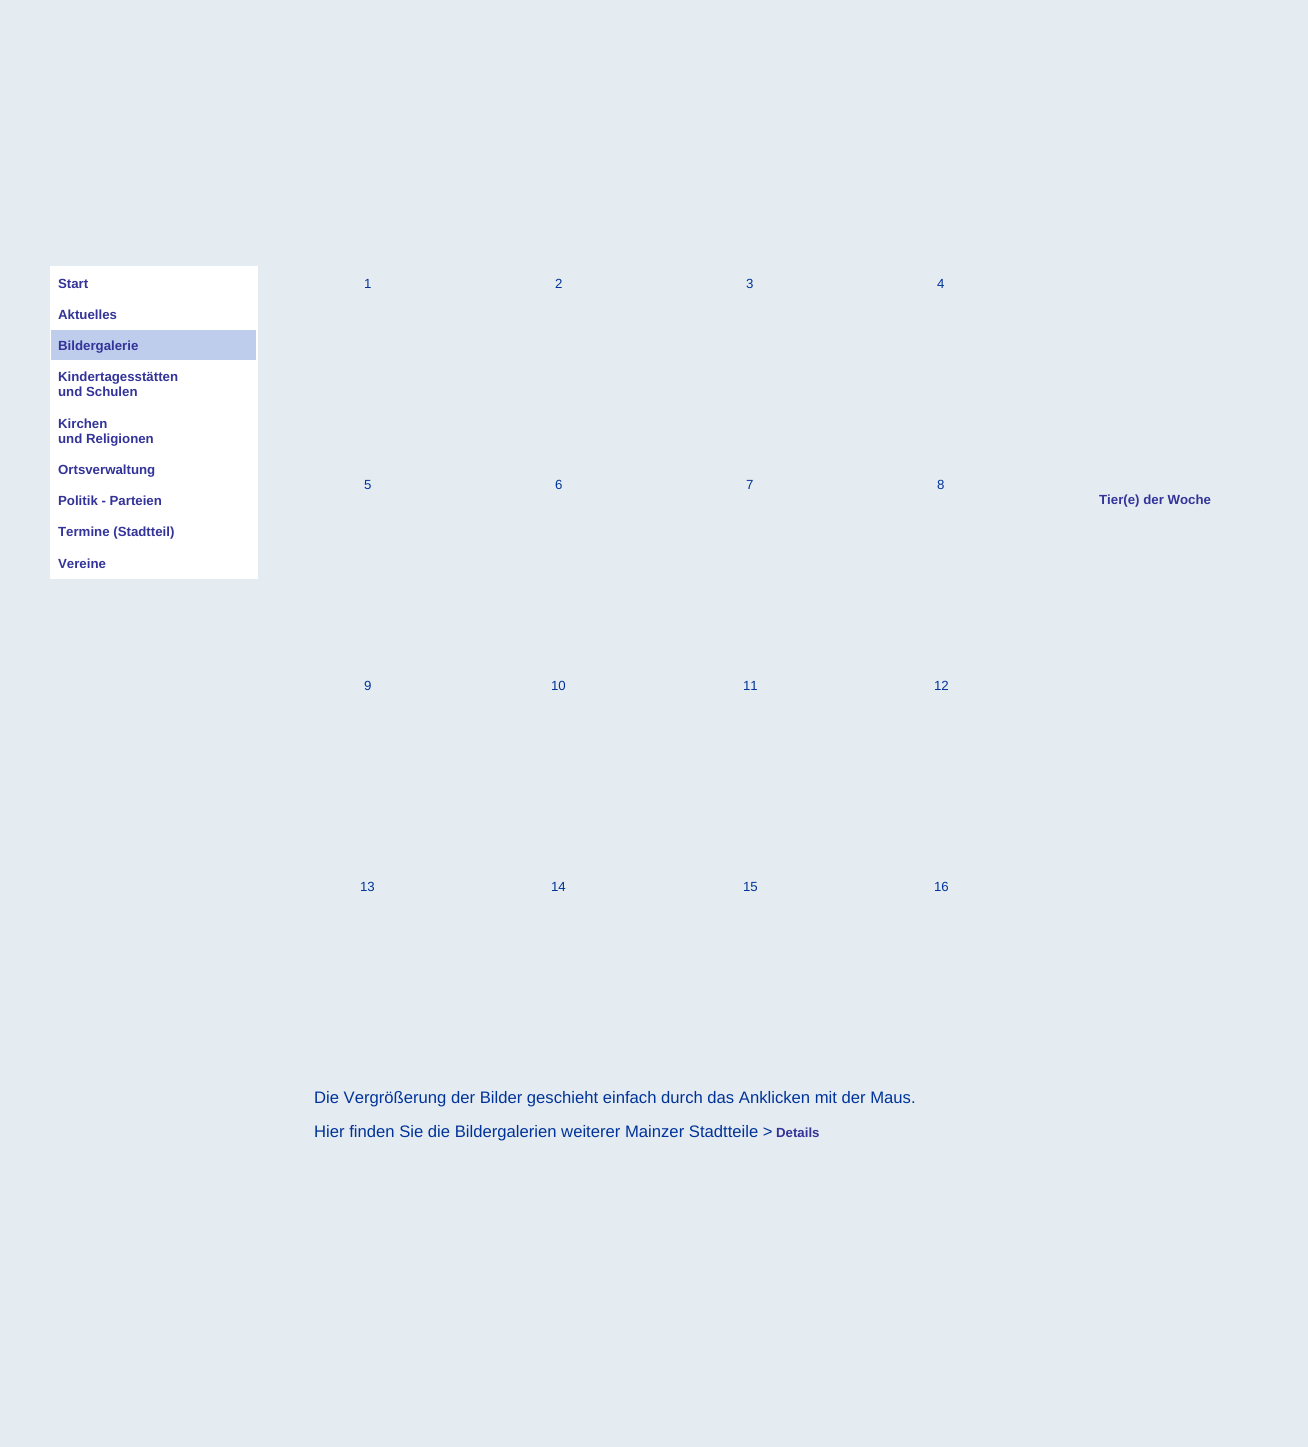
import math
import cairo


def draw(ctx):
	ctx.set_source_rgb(0.898, 0.922, 0.945)
	ctx.paint()
	ctx.set_source_rgb(1, 1, 1)
	ctx.rectangle(50, 266, 208, 313)
	ctx.fill()
	ctx.select_font_face('Liberation Sans', cairo.FONT_SLANT_NORMAL, cairo.FONT_WEIGHT_BOLD)
	ctx.set_font_size(13.25)
	ctx.set_source_rgb(0.2, 0.2, 0.6)
	ctx.move_to(58, 288)
	ctx.show_text('Start')
	ctx.move_to(58, 319)
	ctx.show_text('Aktuelles')
	ctx.set_source_rgb(0.745, 0.804, 0.918)
	ctx.rectangle(51, 330, 205, 30)
	ctx.fill()
	ctx.set_source_rgb(0.2, 0.2, 0.6)
	for x, y, s in [
		(58, 350, 'Bildergalerie'),
		(58, 381, 'Kindertagesstätten'),
		(58, 396, 'und Schulen'),
		(58, 428, 'Kirchen'),
		(58, 443, 'und Religionen'),
		(58, 474, 'Ortsverwaltung'),
		(58, 505, 'Politik - Parteien'),
		(58, 536, 'Termine (Stadtteil)'),
		(58, 568, 'Vereine'),
	]:
		ctx.move_to(x, y)
		ctx.show_text(s)
	ctx.select_font_face('Liberation Sans')
	ctx.set_source_rgb(0, 0.2, 0.6)
	for x, y, s in [
		(364, 288, '1'),
		(555, 288, '2'),
		(746, 288, '3'),
		(937, 288, '4'),
		(364, 489, '5'),
		(555, 489, '6'),
		(746, 489, '7'),
		(937, 489, '8'),
		(364, 690, '9'),
		(551, 690, '10'),
		(743, 690, '11'),
		(934, 690, '12'),
		(360, 891, '13'),
		(551, 891, '14'),
		(743, 891, '15'),
		(934, 891, '16'),
	]:
		ctx.move_to(x, y)
		ctx.show_text(s)
	ctx.set_font_size(16.65)
	ctx.move_to(314, 1103)
	ctx.show_text('Die Vergrößerung der Bilder geschieht einfach durch das Anklicken mit der Maus.')
	ctx.move_to(314, 1137)
	ctx.show_text('Hier finden Sie die Bildergalerien weiterer Mainzer Stadtteile >')
	ctx.select_font_face('Liberation Sans', cairo.FONT_SLANT_NORMAL, cairo.FONT_WEIGHT_BOLD)
	ctx.set_font_size(13.25)
	ctx.set_source_rgb(0.2, 0.2, 0.6)
	ctx.move_to(776, 1137)
	ctx.show_text('Details')
	ctx.move_to(1099, 504)
	ctx.show_text('Tier(e) der Woche')


surface = cairo.ImageSurface(cairo.FORMAT_RGB24, 1308, 1447)
ctx = cairo.Context(surface)
options = cairo.FontOptions()
options.set_hint_metrics(cairo.HINT_METRICS_OFF)
options.set_hint_style(cairo.HINT_STYLE_NONE)
ctx.set_font_options(options)
ctx.set_miter_limit(4)
draw(ctx)
surface.write_to_png('image.png')
